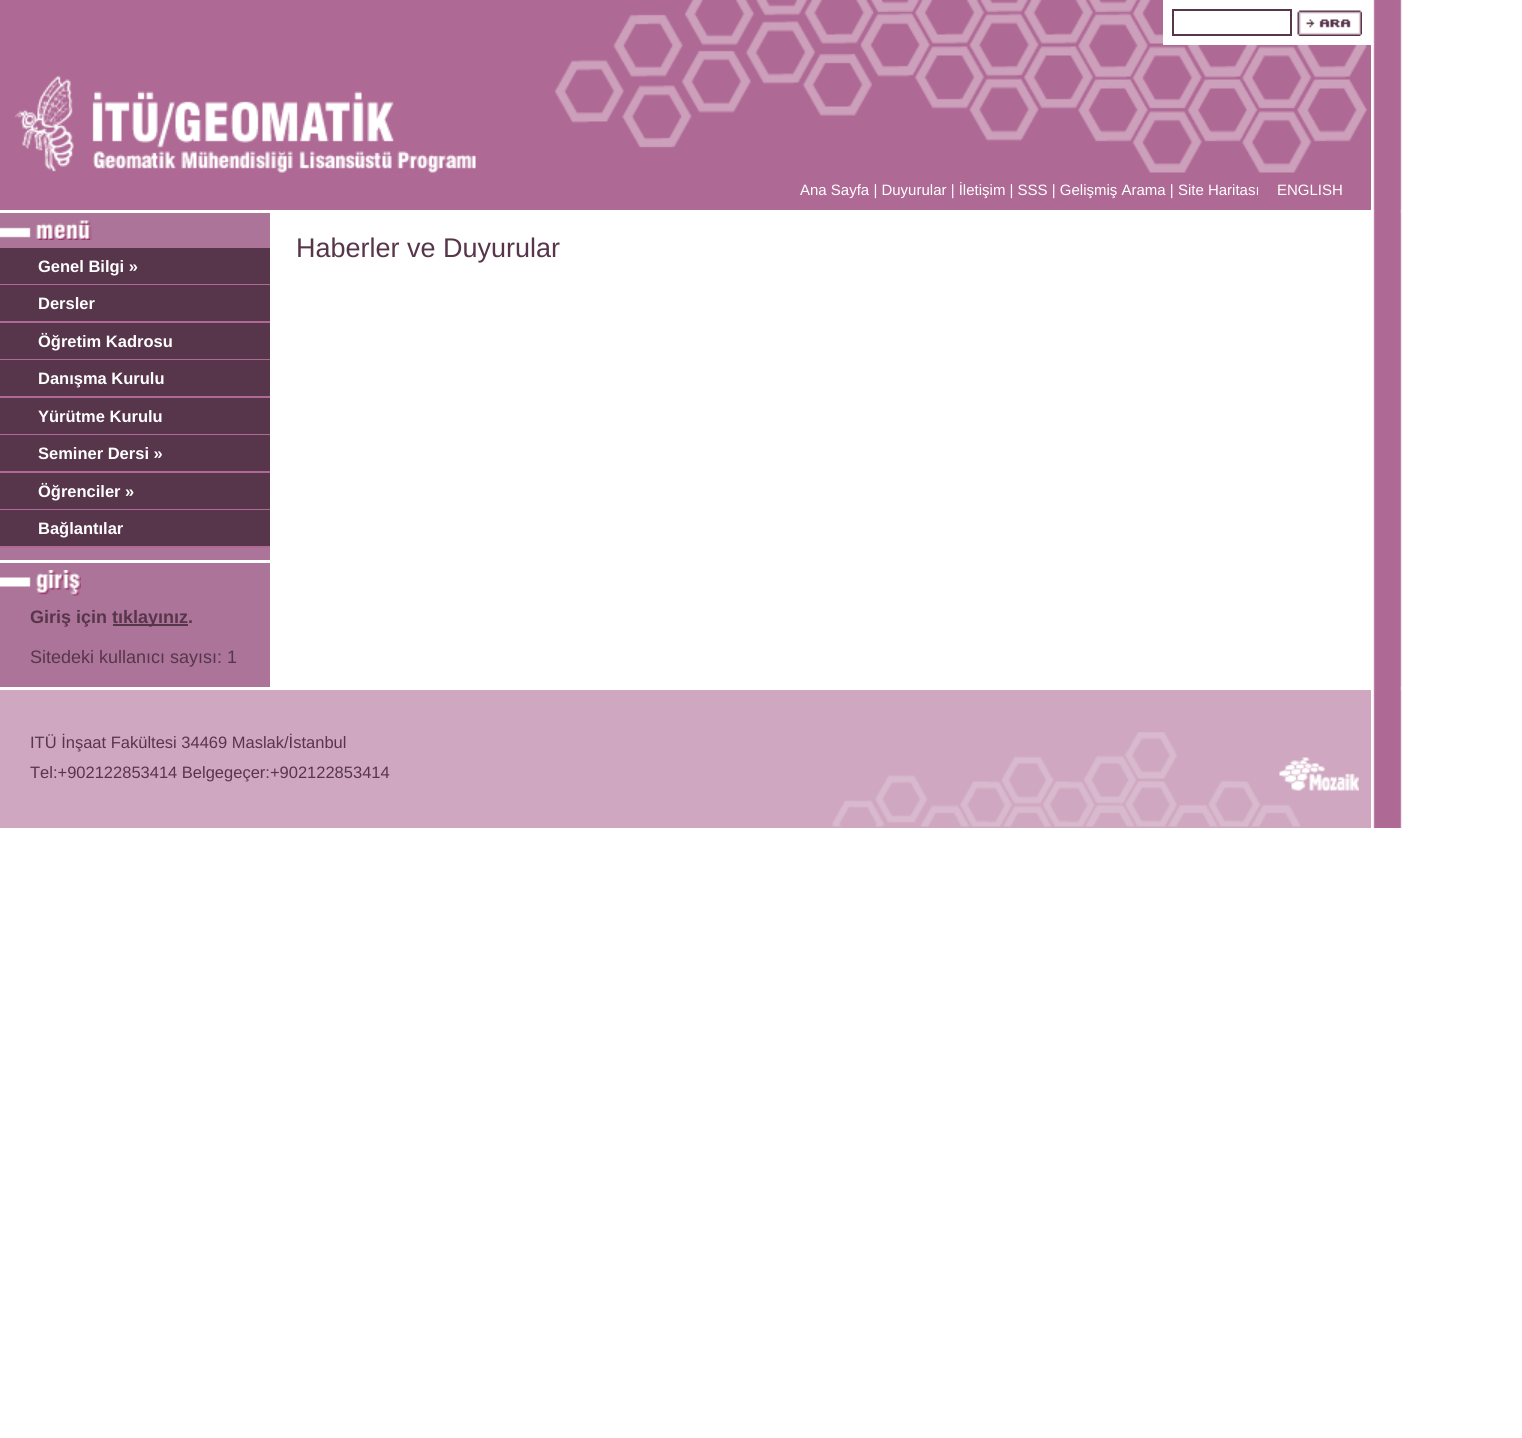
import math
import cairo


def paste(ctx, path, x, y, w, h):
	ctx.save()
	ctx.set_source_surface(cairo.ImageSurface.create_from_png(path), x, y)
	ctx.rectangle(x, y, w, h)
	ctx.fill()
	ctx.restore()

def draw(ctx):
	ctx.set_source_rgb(1, 1, 1)
	ctx.paint()
	ctx.set_source_rgb(0.686, 0.412, 0.584)
	ctx.rectangle(0, 0, 1371, 210)
	ctx.fill()
	paste(ctx, 'media/1.png', 554, 0, 813, 173)
	ctx.set_source_rgb(1, 1, 1)
	ctx.rectangle(1163, 0, 208, 45)
	ctx.fill()
	ctx.rectangle(1173, 10, 118, 25)
	ctx.set_source_rgb(0.341, 0.208, 0.294)
	ctx.stroke()
	paste(ctx, 'media/2.png', 1297, 10, 65, 26)
	paste(ctx, 'media/3.png', 15, 76, 461, 97)
	ctx.select_font_face('Liberation Sans')
	ctx.set_font_size(15)
	ctx.set_source_rgb(1, 1, 1)
	ctx.move_to(800, 195)
	ctx.show_text('Ana Sayfa | Duyurular | İletişim | SSS | Gelişmiş Arama | Site Haritası')
	ctx.move_to(1277, 195)
	ctx.show_text('ENGLISH')
	paste(ctx, 'media/4.png', 1373, 0, 29, 210)
	paste(ctx, 'media/5.png', 1373, 210, 29, 3)
	ctx.set_font_size(27)
	ctx.set_source_rgb(0.341, 0.208, 0.294)
	ctx.move_to(296, 257)
	ctx.show_text('Haberler ve Duyurular')
	ctx.set_source_rgb(0.671, 0.455, 0.596)
	ctx.rectangle(0, 213, 270, 474)
	ctx.fill()
	paste(ctx, 'media/6.png', 0, 220, 92, 20)
	ctx.set_source_rgb(0.341, 0.208, 0.294)
	ctx.rectangle(0, 248, 270, 36)
	ctx.fill()
	ctx.set_source_rgb(0.686, 0.412, 0.584)
	ctx.rectangle(0, 284, 270, 1)
	ctx.fill()
	ctx.select_font_face('Liberation Sans', cairo.FONT_SLANT_NORMAL, cairo.FONT_WEIGHT_BOLD)
	ctx.set_font_size(16.5)
	ctx.set_source_rgb(1, 1, 1)
	ctx.move_to(38, 272)
	ctx.show_text('Genel Bilgi »')
	ctx.set_source_rgb(0.341, 0.208, 0.294)
	ctx.rectangle(0, 285, 270, 36)
	ctx.fill()
	ctx.set_source_rgb(0.686, 0.412, 0.584)
	ctx.rectangle(0, 321, 270, 2)
	ctx.fill()
	ctx.set_source_rgb(1, 1, 1)
	ctx.move_to(38, 309)
	ctx.show_text('Dersler')
	ctx.set_source_rgb(0.341, 0.208, 0.294)
	ctx.rectangle(0, 323, 270, 36)
	ctx.fill()
	ctx.set_source_rgb(0.686, 0.412, 0.584)
	ctx.rectangle(0, 359, 270, 1)
	ctx.fill()
	ctx.set_source_rgb(1, 1, 1)
	ctx.move_to(38, 347)
	ctx.show_text('Öğretim Kadrosu')
	ctx.set_source_rgb(0.341, 0.208, 0.294)
	ctx.rectangle(0, 360, 270, 36)
	ctx.fill()
	ctx.set_source_rgb(0.686, 0.412, 0.584)
	ctx.rectangle(0, 396, 270, 2)
	ctx.fill()
	ctx.set_source_rgb(1, 1, 1)
	ctx.move_to(38, 384)
	ctx.show_text('Danışma Kurulu')
	ctx.set_source_rgb(0.341, 0.208, 0.294)
	ctx.rectangle(0, 398, 270, 36)
	ctx.fill()
	ctx.set_source_rgb(0.686, 0.412, 0.584)
	ctx.rectangle(0, 434, 270, 1)
	ctx.fill()
	ctx.set_source_rgb(1, 1, 1)
	ctx.move_to(38, 422)
	ctx.show_text('Yürütme Kurulu')
	ctx.set_source_rgb(0.341, 0.208, 0.294)
	ctx.rectangle(0, 435, 270, 36)
	ctx.fill()
	ctx.set_source_rgb(0.686, 0.412, 0.584)
	ctx.rectangle(0, 471, 270, 2)
	ctx.fill()
	ctx.set_source_rgb(1, 1, 1)
	ctx.move_to(38, 459)
	ctx.show_text('Seminer Dersi »')
	ctx.set_source_rgb(0.341, 0.208, 0.294)
	ctx.rectangle(0, 473, 270, 36)
	ctx.fill()
	ctx.set_source_rgb(0.686, 0.412, 0.584)
	ctx.rectangle(0, 509, 270, 1)
	ctx.fill()
	ctx.set_source_rgb(1, 1, 1)
	ctx.move_to(38, 497)
	ctx.show_text('Öğrenciler »')
	ctx.set_source_rgb(0.341, 0.208, 0.294)
	ctx.rectangle(0, 510, 270, 36)
	ctx.fill()
	ctx.set_source_rgb(0.686, 0.412, 0.584)
	ctx.rectangle(0, 546, 270, 2)
	ctx.fill()
	ctx.set_source_rgb(1, 1, 1)
	ctx.move_to(38, 534)
	ctx.show_text('Bağlantılar')
	ctx.rectangle(0, 560, 270, 3)
	ctx.fill()
	paste(ctx, 'media/7.png', 0, 570, 81, 26)
	ctx.set_font_size(18)
	ctx.set_source_rgb(0.341, 0.208, 0.294)
	ctx.move_to(30, 623)
	ctx.show_text('Giriş için')
	ctx.rectangle(113, 624, 75, 2)
	ctx.fill()
	ctx.move_to(112, 623)
	ctx.show_text('tıklayınız.')
	ctx.select_font_face('Liberation Sans')
	ctx.move_to(30, 663)
	ctx.show_text('Sitedeki kullanıcı sayısı: 1')
	paste(ctx, 'media/8.png', 1373, 213, 29, 474)
	paste(ctx, 'media/5.png', 1373, 687, 29, 3)
	ctx.set_source_rgb(0.812, 0.655, 0.753)
	ctx.rectangle(0, 690, 1371, 138)
	ctx.fill()
	paste(ctx, 'media/9.png', 832, 732, 469, 95)
	ctx.set_font_size(16.5)
	ctx.set_source_rgb(0.341, 0.208, 0.294)
	ctx.move_to(30, 748)
	ctx.show_text('ITÜ İnşaat Fakültesi 34469 Maslak/İstanbul')
	ctx.move_to(30, 778)
	ctx.show_text('Tel:+902122853414 Belgegeçer:+902122853414')
	paste(ctx, 'media/10.png', 1279, 757, 80, 34)
	paste(ctx, 'media/11.png', 1373, 690, 29, 138)


surface = cairo.ImageSurface(cairo.FORMAT_RGB24, 1522, 1438)
ctx = cairo.Context(surface)
options = cairo.FontOptions()
options.set_hint_metrics(cairo.HINT_METRICS_OFF)
options.set_hint_style(cairo.HINT_STYLE_NONE)
ctx.set_font_options(options)
ctx.set_miter_limit(4)
draw(ctx)
surface.write_to_png('image.png')
